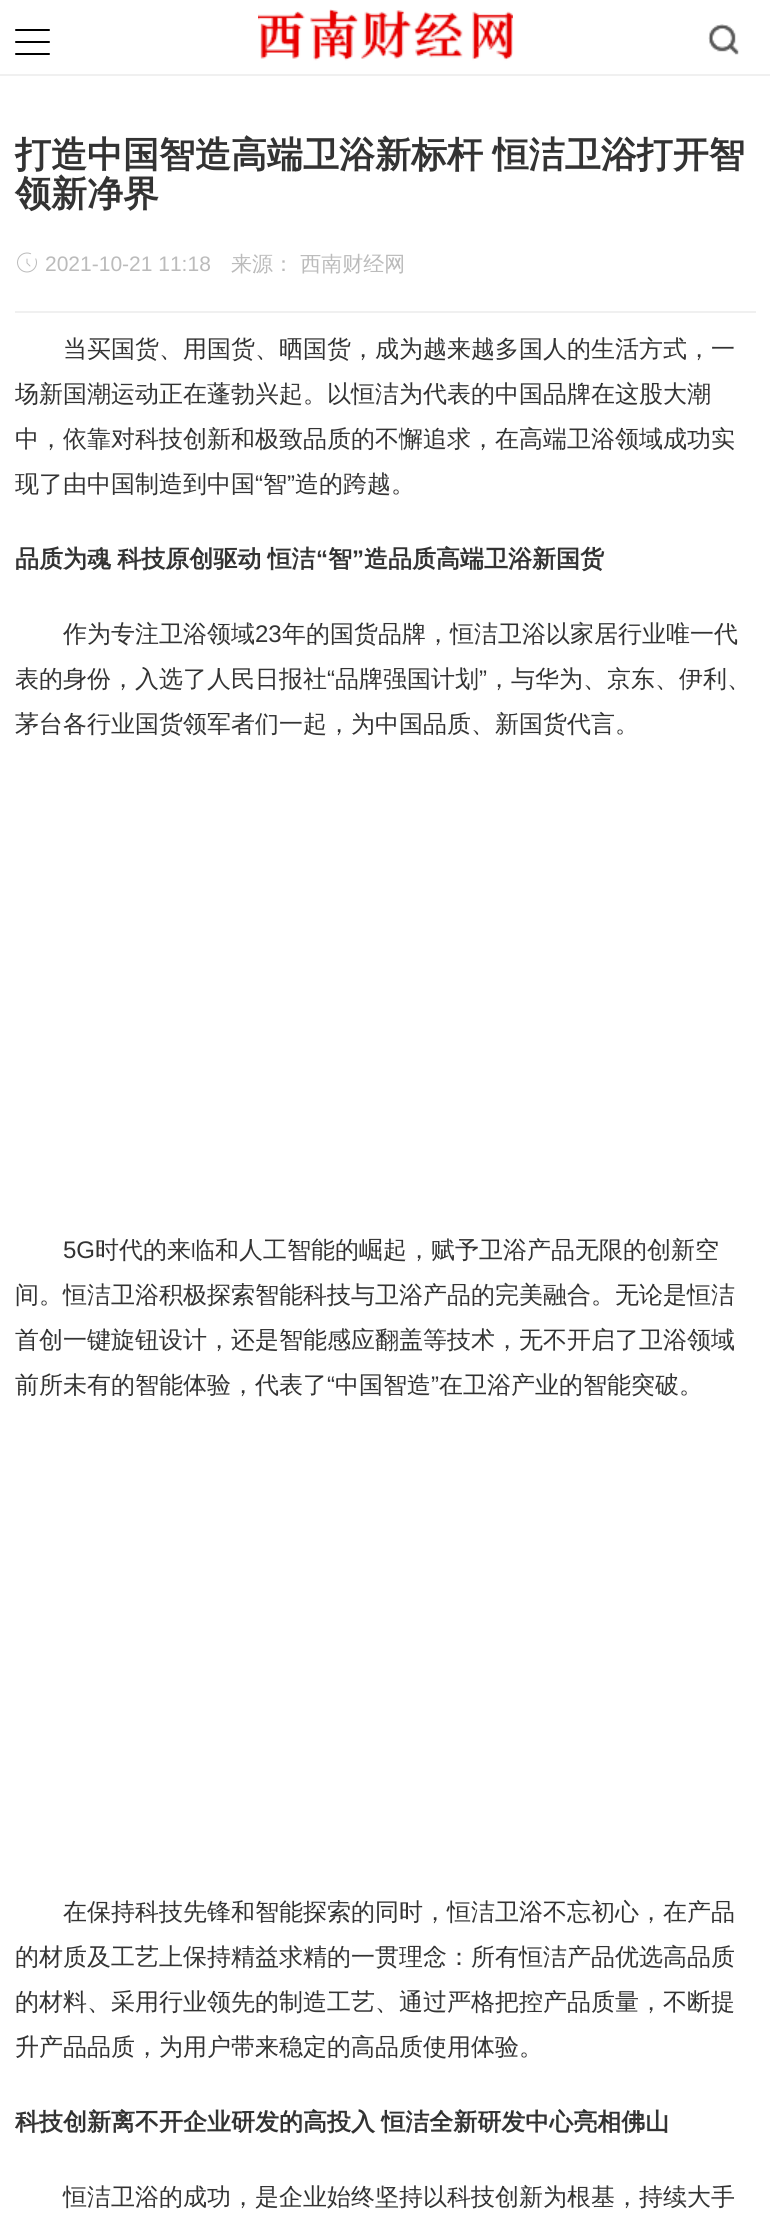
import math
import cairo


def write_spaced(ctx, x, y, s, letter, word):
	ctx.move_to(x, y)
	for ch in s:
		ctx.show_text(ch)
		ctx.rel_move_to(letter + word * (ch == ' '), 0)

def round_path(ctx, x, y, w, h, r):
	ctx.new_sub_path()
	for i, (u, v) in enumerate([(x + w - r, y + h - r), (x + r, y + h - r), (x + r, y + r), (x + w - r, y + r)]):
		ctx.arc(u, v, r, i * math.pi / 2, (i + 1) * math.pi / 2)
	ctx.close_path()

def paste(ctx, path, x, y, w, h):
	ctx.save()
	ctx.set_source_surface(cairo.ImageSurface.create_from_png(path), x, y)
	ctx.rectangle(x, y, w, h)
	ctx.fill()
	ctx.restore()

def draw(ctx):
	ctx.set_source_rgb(1, 1, 1)
	ctx.paint()
	ctx.set_source_rgb(0.941, 0.941, 0.941)
	ctx.rectangle(0, 74, 770, 2)
	ctx.fill()
	ctx.set_source_rgb(0, 0, 0)
	round_path(ctx, 15, 29, 35, 2, 1)
	ctx.fill()
	round_path(ctx, 15, 41, 35, 2, 1)
	ctx.fill()
	round_path(ctx, 15, 53, 35, 2, 1)
	ctx.fill()
	paste(ctx, 'media/1.png', 258, 9, 255, 52)
	paste(ctx, 'media/2.png', 708, 24, 31, 31)
	ctx.select_font_face('WenQuanYi Zen Hei', cairo.FONT_SLANT_NORMAL, cairo.FONT_WEIGHT_BOLD)
	ctx.set_font_size(36)
	ctx.set_source_rgb(0.2, 0.2, 0.2)
	write_spaced(ctx, 15, 167, '打造中国智造高端卫浴新标杆 恒洁卫浴打开智', 0, -1)
	ctx.move_to(15, 206)
	ctx.show_text('领新净界')
	paste(ctx, 'media/3.png', 17, 252, 20, 21)
	ctx.select_font_face('Liberation Sans')
	ctx.set_font_size(21)
	ctx.set_source_rgb(0.733, 0.733, 0.733)
	ctx.move_to(45, 271)
	ctx.show_text('2021-10-21 11:18')
	ctx.select_font_face('WenQuanYi Zen Hei Medium')
	ctx.move_to(231, 271)
	ctx.show_text('来源： 西南财经网')
	ctx.set_source_rgb(0.941, 0.941, 0.941)
	ctx.rectangle(15, 311, 741, 2)
	ctx.fill()
	ctx.set_font_size(24)
	ctx.set_source_rgb(0.2, 0.2, 0.2)
	for x, y, s in [
		(63, 357, '当买国货、用国货、晒国货，成为越来越多国人的生活方式，一'),
		(15, 402, '场新国潮运动正在蓬勃兴起。以恒洁为代表的中国品牌在这股大潮'),
		(15, 447, '中，依靠对科技创新和极致品质的不懈追求，在高端卫浴领域成功实'),
		(15, 492, '现了由中国制造到中国'),
	]:
		ctx.move_to(x, y)
		ctx.show_text(s)
	ctx.select_font_face('Liberation Sans')
	ctx.move_to(255, 492)
	ctx.show_text('“')
	ctx.select_font_face('WenQuanYi Zen Hei Medium')
	ctx.move_to(263, 492)
	ctx.show_text('智')
	ctx.select_font_face('Liberation Sans')
	ctx.move_to(287, 492)
	ctx.show_text('”')
	ctx.select_font_face('WenQuanYi Zen Hei Medium')
	ctx.move_to(295, 492)
	ctx.show_text('造的跨越。')
	ctx.select_font_face('WenQuanYi Zen Hei', cairo.FONT_SLANT_NORMAL, cairo.FONT_WEIGHT_BOLD)
	write_spaced(ctx, 15, 567, '品质为魂 科技原创驱动 恒洁', 0, -1)
	ctx.select_font_face('Liberation Sans', cairo.FONT_SLANT_NORMAL, cairo.FONT_WEIGHT_BOLD)
	ctx.move_to(316, 567)
	ctx.show_text('“')
	ctx.select_font_face('WenQuanYi Zen Hei', cairo.FONT_SLANT_NORMAL, cairo.FONT_WEIGHT_BOLD)
	ctx.move_to(328, 567)
	ctx.show_text('智')
	ctx.select_font_face('Liberation Sans', cairo.FONT_SLANT_NORMAL, cairo.FONT_WEIGHT_BOLD)
	ctx.move_to(352, 567)
	ctx.show_text('”')
	ctx.select_font_face('WenQuanYi Zen Hei', cairo.FONT_SLANT_NORMAL, cairo.FONT_WEIGHT_BOLD)
	ctx.move_to(364, 567)
	ctx.show_text('造品质高端卫浴新国货')
	ctx.select_font_face('WenQuanYi Zen Hei Medium')
	ctx.move_to(63, 642)
	ctx.show_text('作为专注卫浴领域')
	ctx.select_font_face('Liberation Sans')
	ctx.move_to(255, 642)
	ctx.show_text('23')
	ctx.select_font_face('WenQuanYi Zen Hei Medium')
	ctx.move_to(282, 642)
	ctx.show_text('年的国货品牌，恒洁卫浴以家居行业唯一代')
	ctx.move_to(15, 687)
	ctx.show_text('表的身份，入选了人民日报社')
	ctx.select_font_face('Liberation Sans')
	ctx.move_to(327, 687)
	ctx.show_text('“')
	ctx.select_font_face('WenQuanYi Zen Hei Medium')
	ctx.move_to(335, 687)
	ctx.show_text('品牌强国计划')
	ctx.select_font_face('Liberation Sans')
	ctx.move_to(479, 687)
	ctx.show_text('”')
	ctx.select_font_face('WenQuanYi Zen Hei Medium')
	ctx.move_to(487, 687)
	ctx.show_text('，与华为、京东、伊利、')
	ctx.move_to(15, 732)
	ctx.show_text('茅台各行业国货领军者们一起，为中国品质、新国货代言。')
	ctx.select_font_face('Liberation Sans')
	ctx.move_to(63, 1258)
	ctx.show_text('5G')
	ctx.select_font_face('WenQuanYi Zen Hei Medium')
	for x, y, s in [
		(95, 1258, '时代的来临和人工智能的崛起，赋予卫浴产品无限的创新空'),
		(15, 1303, '间。恒洁卫浴积极探索智能科技与卫浴产品的完美融合。无论是恒洁'),
		(15, 1348, '首创一键旋钮设计，还是智能感应翻盖等技术，无不开启了卫浴领域'),
		(15, 1393, '前所未有的智能体验，代表了'),
	]:
		ctx.move_to(x, y)
		ctx.show_text(s)
	ctx.select_font_face('Liberation Sans')
	ctx.move_to(327, 1393)
	ctx.show_text('“')
	ctx.select_font_face('WenQuanYi Zen Hei Medium')
	ctx.move_to(335, 1393)
	ctx.show_text('中国智造')
	ctx.select_font_face('Liberation Sans')
	ctx.move_to(431, 1393)
	ctx.show_text('”')
	ctx.select_font_face('WenQuanYi Zen Hei Medium')
	for x, y, s in [
		(439, 1393, '在卫浴产业的智能突破。'),
		(63, 1920, '在保持科技先锋和智能探索的同时，恒洁卫浴不忘初心，在产品'),
		(15, 1965, '的材质及工艺上保持精益求精的一贯理念：所有恒洁产品优选高品质'),
		(15, 2010, '的材料、采用行业领先的制造工艺、通过严格把控产品质量，不断提'),
		(15, 2055, '升产品品质，为用户带来稳定的高品质使用体验。'),
	]:
		ctx.move_to(x, y)
		ctx.show_text(s)
	ctx.select_font_face('WenQuanYi Zen Hei', cairo.FONT_SLANT_NORMAL, cairo.FONT_WEIGHT_BOLD)
	write_spaced(ctx, 15, 2130, '科技创新离不开企业研发的高投入 恒洁全新研发中心亮相佛山', 0, -1)
	ctx.select_font_face('WenQuanYi Zen Hei Medium')
	ctx.move_to(63, 2205)
	ctx.show_text('恒洁卫浴的成功，是企业始终坚持以科技创新为根基，持续大手')


surface = cairo.ImageSurface(cairo.FORMAT_RGB24, 770, 2239)
ctx = cairo.Context(surface)
options = cairo.FontOptions()
options.set_hint_metrics(cairo.HINT_METRICS_OFF)
options.set_hint_style(cairo.HINT_STYLE_NONE)
ctx.set_font_options(options)
ctx.set_miter_limit(4)
draw(ctx)
surface.write_to_png('image.png')
